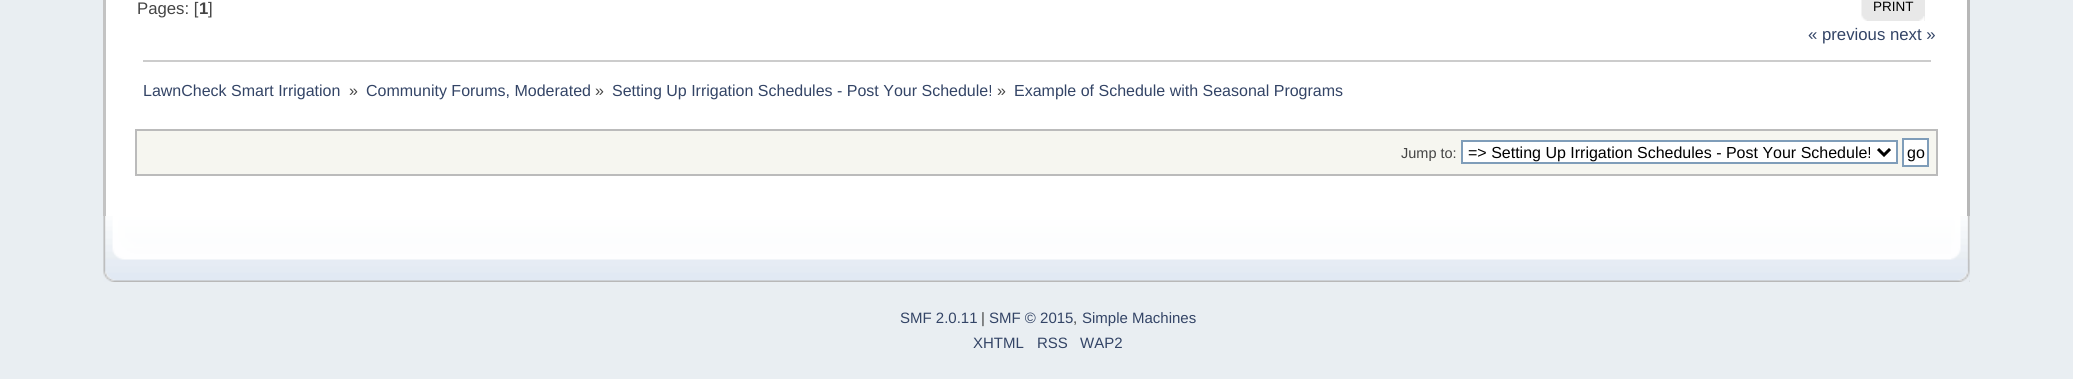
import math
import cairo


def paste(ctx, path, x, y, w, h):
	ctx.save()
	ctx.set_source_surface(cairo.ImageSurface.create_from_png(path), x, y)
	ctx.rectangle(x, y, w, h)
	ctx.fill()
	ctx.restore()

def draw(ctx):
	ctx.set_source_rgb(0.914, 0.933, 0.949)
	ctx.paint()
	ctx.set_source_rgb(1, 1, 1)
	ctx.rectangle(106, 0, 1861, 216)
	ctx.fill()
	ctx.set_source_rgb(0.765, 0.765, 0.765)
	ctx.rectangle(103, 0, 3, 216)
	ctx.fill()
	ctx.set_source_rgb(0.718, 0.718, 0.718)
	ctx.rectangle(1967, 0, 3, 216)
	ctx.fill()
	ctx.select_font_face('Liberation Sans')
	ctx.set_font_size(16.75)
	ctx.set_source_rgb(0.267, 0.267, 0.267)
	ctx.move_to(137, 14)
	ctx.show_text('Pages: [')
	ctx.select_font_face('Liberation Sans', cairo.FONT_SLANT_NORMAL, cairo.FONT_WEIGHT_BOLD)
	ctx.move_to(199, 14)
	ctx.show_text('1')
	ctx.select_font_face('Liberation Sans')
	ctx.move_to(208, 14)
	ctx.show_text(']')
	ctx.set_source_rgb(0.91, 0.91, 0.91)
	ctx.rectangle(1867, 0, 58, 21)
	ctx.fill()
	paste(ctx, 'media/1.png', 1861, 0, 6, 21)
	paste(ctx, 'media/2.png', 1919, 16, 6, 5)
	ctx.set_font_size(13.5)
	ctx.set_source_rgb(0, 0, 0)
	ctx.move_to(1873, 11)
	ctx.show_text('PRINT')
	ctx.set_font_size(16.75)
	ctx.set_source_rgb(0.2, 0.267, 0.4)
	ctx.move_to(1808, 40)
	ctx.show_text('« previous next »')
	ctx.set_source_rgb(0.8, 0.8, 0.8)
	ctx.rectangle(143, 60, 1788, 2)
	ctx.fill()
	ctx.set_font_size(16)
	ctx.set_source_rgb(0.2, 0.267, 0.4)
	ctx.move_to(143, 96)
	ctx.show_text('LawnCheck Smart Irrigation')
	ctx.set_source_rgb(0.267, 0.267, 0.267)
	ctx.move_to(349, 96)
	ctx.show_text('»')
	ctx.set_source_rgb(0.2, 0.267, 0.4)
	ctx.move_to(366, 96)
	ctx.show_text('Community Forums, Moderated')
	ctx.set_source_rgb(0.267, 0.267, 0.267)
	ctx.move_to(595, 96)
	ctx.show_text('»')
	ctx.set_source_rgb(0.2, 0.267, 0.4)
	ctx.move_to(612, 96)
	ctx.show_text('Setting Up Irrigation Schedules - Post Your Schedule!')
	ctx.set_source_rgb(0.267, 0.267, 0.267)
	ctx.move_to(997, 96)
	ctx.show_text('»')
	ctx.set_source_rgb(0.2, 0.267, 0.4)
	ctx.move_to(1014, 96)
	ctx.show_text('Example of Schedule with Seasonal Programs')
	ctx.set_source_rgb(0.961, 0.961, 0.941)
	ctx.rectangle(136, 130, 1801, 45)
	ctx.fill_preserve()
	ctx.set_source_rgb(0.733, 0.733, 0.733)
	ctx.stroke()
	ctx.set_font_size(14.5)
	ctx.set_source_rgb(0.267, 0.267, 0.267)
	ctx.move_to(1401, 158)
	ctx.show_text('Jump to:')
	ctx.set_source_rgb(1, 1, 1)
	ctx.rectangle(1462, 141, 435, 22)
	ctx.fill_preserve()
	ctx.set_source_rgb(0.498, 0.616, 0.725)
	ctx.stroke()
	ctx.new_path()
	ctx.move_to(1878, 149)
	ctx.line_to(1884, 155)
	ctx.line_to(1890, 149)
	ctx.set_source_rgb(0, 0, 0)
	ctx.set_line_width(3)
	ctx.stroke()
	ctx.set_font_size(16)
	ctx.move_to(1468, 158)
	ctx.show_text('=> Setting Up Irrigation Schedules - Post Your Schedule!')
	ctx.set_source_rgb(1, 1, 1)
	ctx.rectangle(1903, 139, 25, 27)
	ctx.fill_preserve()
	ctx.set_source_rgb(0.498, 0.616, 0.725)
	ctx.set_line_width(2)
	ctx.stroke()
	ctx.set_source_rgb(0, 0, 0)
	ctx.move_to(1907, 158)
	ctx.show_text('go')
	paste(ctx, 'media/3.png', 103, 216, 1867, 66)
	paste(ctx, 'media/4.png', 1951, 216, 19, 66)
	ctx.set_font_size(15)
	ctx.set_source_rgb(0.2, 0.267, 0.4)
	ctx.move_to(900, 323)
	ctx.show_text('SMF 2.0.11')
	ctx.set_source_rgb(0.267, 0.267, 0.267)
	ctx.move_to(981, 323)
	ctx.show_text('|')
	ctx.set_source_rgb(0.2, 0.267, 0.4)
	ctx.move_to(989, 323)
	ctx.show_text('SMF © 2015')
	ctx.set_source_rgb(0.267, 0.267, 0.267)
	ctx.move_to(1073, 323)
	ctx.show_text(',')
	ctx.set_source_rgb(0.2, 0.267, 0.4)
	for x, y, s in [
		(1082, 323, 'Simple Machines'),
		(973, 348, 'XHTML'),
		(1037, 348, 'RSS'),
		(1080, 348, 'WAP2'),
	]:
		ctx.move_to(x, y)
		ctx.show_text(s)


surface = cairo.ImageSurface(cairo.FORMAT_RGB24, 2073, 379)
ctx = cairo.Context(surface)
options = cairo.FontOptions()
options.set_hint_metrics(cairo.HINT_METRICS_OFF)
options.set_hint_style(cairo.HINT_STYLE_NONE)
ctx.set_font_options(options)
ctx.set_miter_limit(4)
draw(ctx)
surface.write_to_png('image.png')
